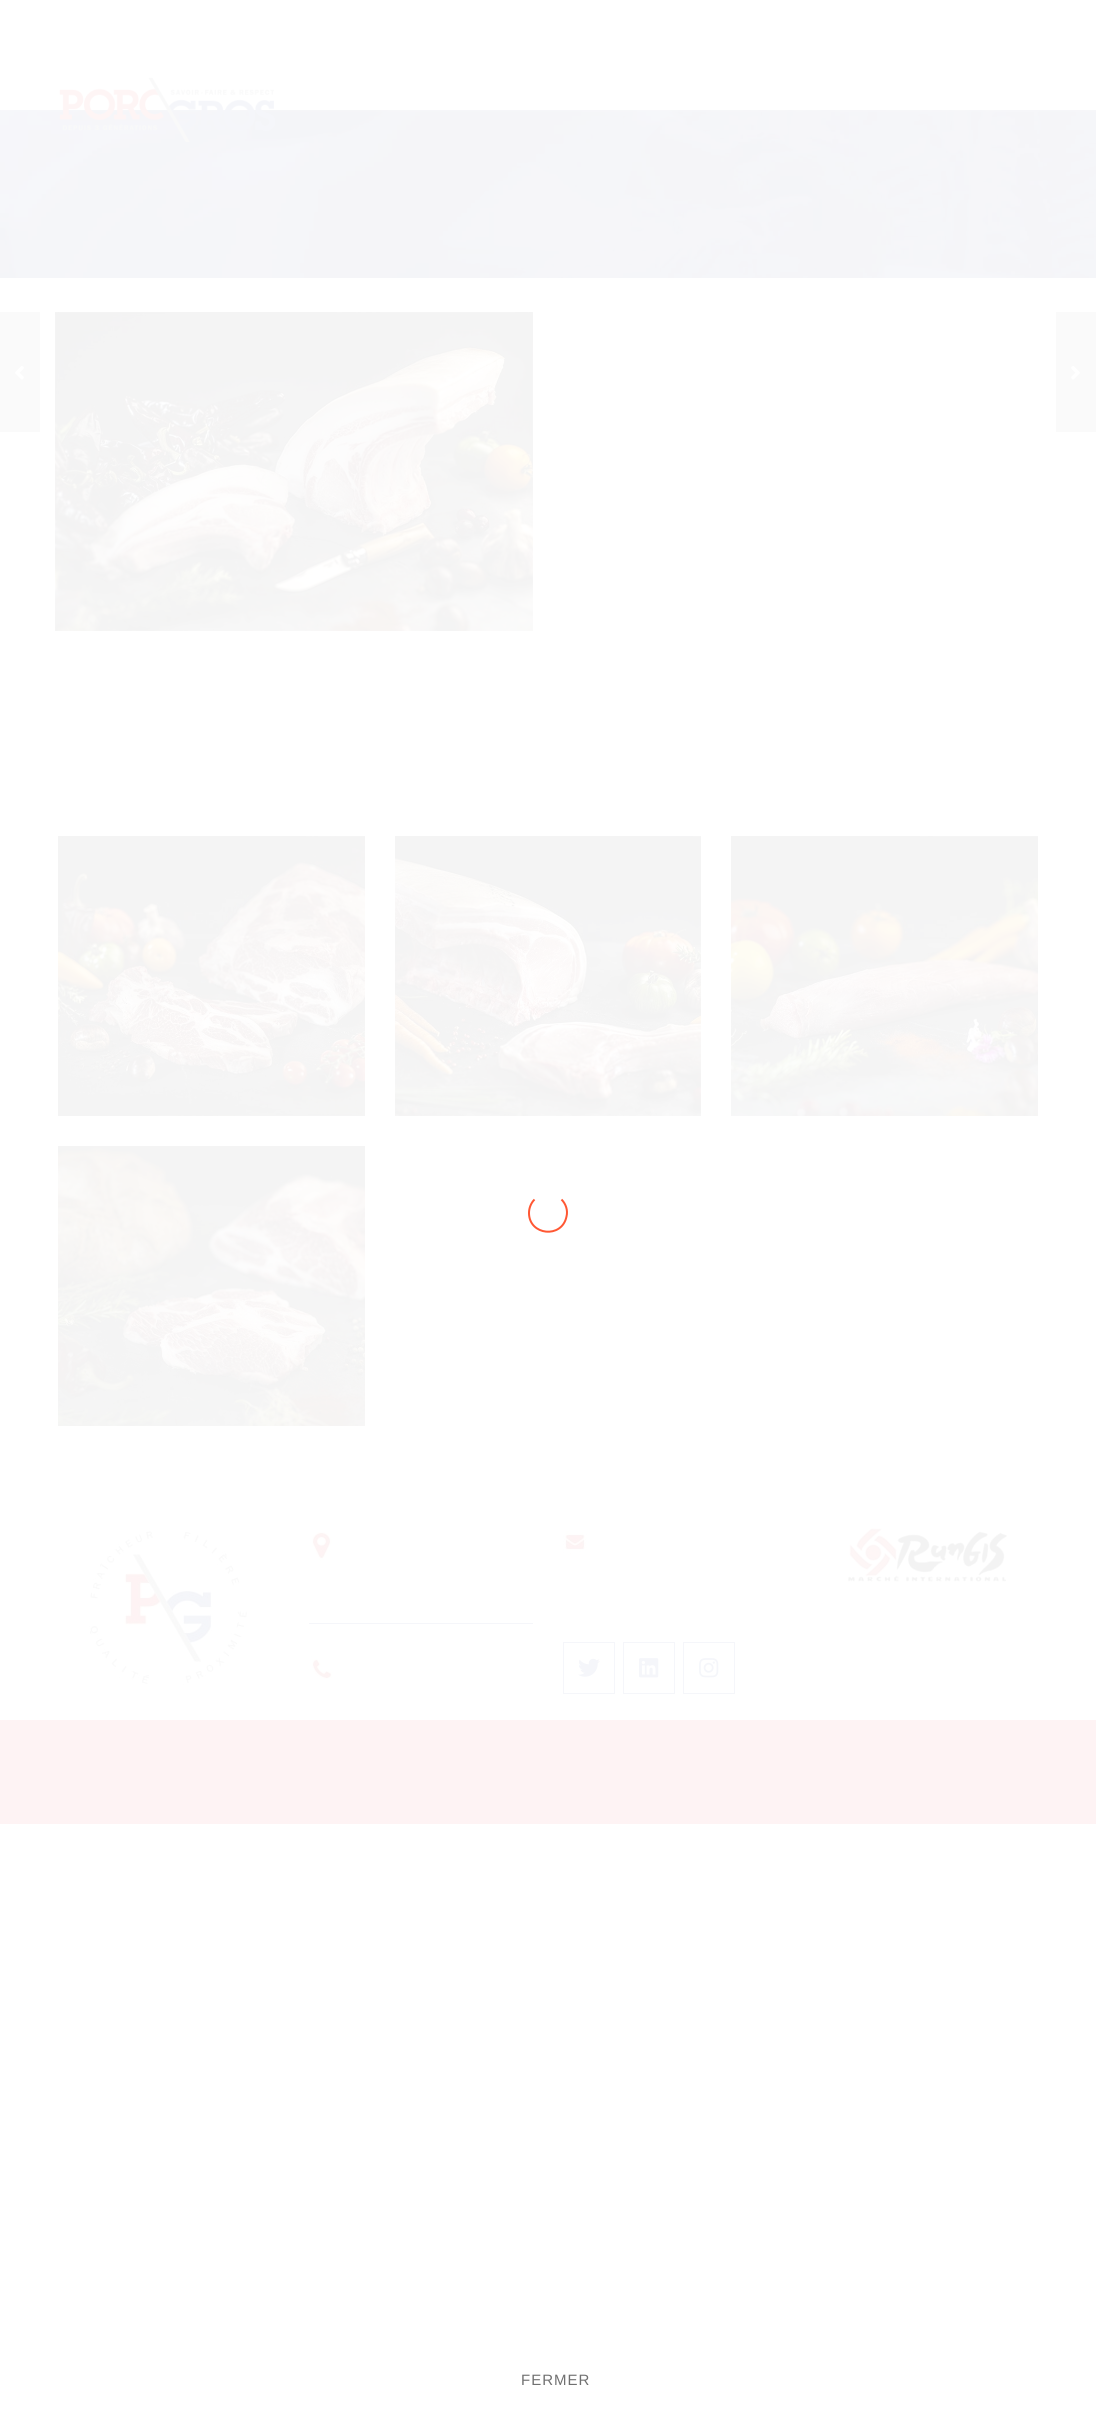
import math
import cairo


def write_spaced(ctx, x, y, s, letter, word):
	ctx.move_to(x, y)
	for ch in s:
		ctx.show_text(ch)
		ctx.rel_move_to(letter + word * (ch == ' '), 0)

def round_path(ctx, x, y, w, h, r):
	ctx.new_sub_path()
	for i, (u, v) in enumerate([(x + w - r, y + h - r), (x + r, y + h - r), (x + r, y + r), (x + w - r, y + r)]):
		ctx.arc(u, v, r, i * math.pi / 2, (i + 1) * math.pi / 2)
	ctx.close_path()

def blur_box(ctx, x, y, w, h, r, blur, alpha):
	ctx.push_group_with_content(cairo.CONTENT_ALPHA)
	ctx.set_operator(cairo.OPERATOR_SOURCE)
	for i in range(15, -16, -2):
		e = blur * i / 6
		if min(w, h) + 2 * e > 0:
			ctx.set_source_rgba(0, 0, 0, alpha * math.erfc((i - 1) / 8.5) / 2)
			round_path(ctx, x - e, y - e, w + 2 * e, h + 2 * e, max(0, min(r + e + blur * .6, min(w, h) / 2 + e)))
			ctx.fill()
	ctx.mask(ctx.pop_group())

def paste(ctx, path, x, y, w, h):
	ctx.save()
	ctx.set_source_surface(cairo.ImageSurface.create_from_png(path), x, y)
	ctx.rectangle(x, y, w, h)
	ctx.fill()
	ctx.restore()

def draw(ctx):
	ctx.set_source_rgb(1, 1, 1)
	ctx.paint()
	paste(ctx, 'media/2.png', 0, 110, 1096, 168)
	ctx.save()
	ctx.rectangle(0, 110, 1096, 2)
	ctx.clip()
	ctx.set_source_rgb(0.631, 0.631, 0.631)
	blur_box(ctx, 0, 1, 1096, 110, 0, 1, 0.25)
	ctx.restore()
	paste(ctx, 'media/1.png', 59, 77, 217, 65)
	ctx.set_source_rgb(0.6, 0.6, 0.6)
	ctx.rectangle(0, 312, 40, 120)
	ctx.fill()
	paste(ctx, 'media/3.png', 15, 365, 9, 15)
	ctx.rectangle(1056, 312, 40, 120)
	ctx.fill()
	paste(ctx, 'media/4.png', 1071, 365, 9, 15)
	paste(ctx, 'media/5.png', 55, 312, 478, 319)
	ctx.set_source_rgb(0.98, 0.98, 0.98)
	ctx.rectangle(0, 695, 1096, 795)
	ctx.fill()
	paste(ctx, 'media/6.png', 58, 836, 307, 280)
	paste(ctx, 'media/7.png', 395, 836, 306, 280)
	paste(ctx, 'media/8.png', 731, 836, 307, 280)
	paste(ctx, 'media/9.png', 58, 1146, 307, 280)
	paste(ctx, 'media/10.png', 85, 1526, 163, 160)
	paste(ctx, 'media/11.png', 309, 1531, 24, 30)
	ctx.set_source_rgb(0.2, 0.282, 0.604)
	ctx.rectangle(309, 1623, 224, 1)
	ctx.fill()
	paste(ctx, 'media/12.png', 309, 1654, 25, 30)
	paste(ctx, 'media/13.png', 563, 1531, 25, 28)
	ctx.rectangle(563.5, 1642.5, 51, 51)
	ctx.set_source_rgb(0.141, 0.251, 0.6)
	ctx.set_line_width(1)
	ctx.stroke()
	paste(ctx, 'media/14.png', 578, 1658, 22, 19)
	ctx.rectangle(623.5, 1642.5, 51, 51)
	ctx.stroke()
	paste(ctx, 'media/15.png', 639, 1658, 20, 20)
	ctx.rectangle(683.5, 1642.5, 51, 51)
	ctx.stroke()
	paste(ctx, 'media/16.png', 699, 1658, 20, 20)
	paste(ctx, 'media/17.png', 846, 1526, 161, 56)
	ctx.set_source_rgb(0.89, 0.024, 0.075)
	ctx.rectangle(0, 1720, 1096, 104)
	ctx.fill()
	ctx.set_source_rgba(1, 1, 1, 0.95)
	ctx.rectangle(0, 77, 1096, 1136)
	ctx.fill()
	ctx.rectangle(0, 1213, 1096, 611)
	ctx.fill()
	ctx.new_path()
	ctx.move_to(561.5, 1199.5)
	ctx.curve_to(566, 1204, 568, 1210.5, 566.5, 1216.5)
	ctx.curve_to(562, 1239, 529, 1235.5, 529, 1213)
	ctx.curve_to(529, 1208, 531, 1203, 534.5, 1199.5)
	ctx.set_source_rgb(1, 0.341, 0.2)
	ctx.set_line_width(2)
	ctx.stroke()
	ctx.select_font_face('Liberation Sans')
	ctx.set_font_size(15)
	ctx.set_source_rgb(0.439, 0.439, 0.439)
	write_spaced(ctx, 521, 2385, 'FERMER', 1, 0)


surface = cairo.ImageSurface(cairo.FORMAT_RGB24, 1096, 2425)
ctx = cairo.Context(surface)
options = cairo.FontOptions()
options.set_hint_metrics(cairo.HINT_METRICS_OFF)
options.set_hint_style(cairo.HINT_STYLE_NONE)
ctx.set_font_options(options)
ctx.set_miter_limit(4)
draw(ctx)
surface.write_to_png('image.png')
